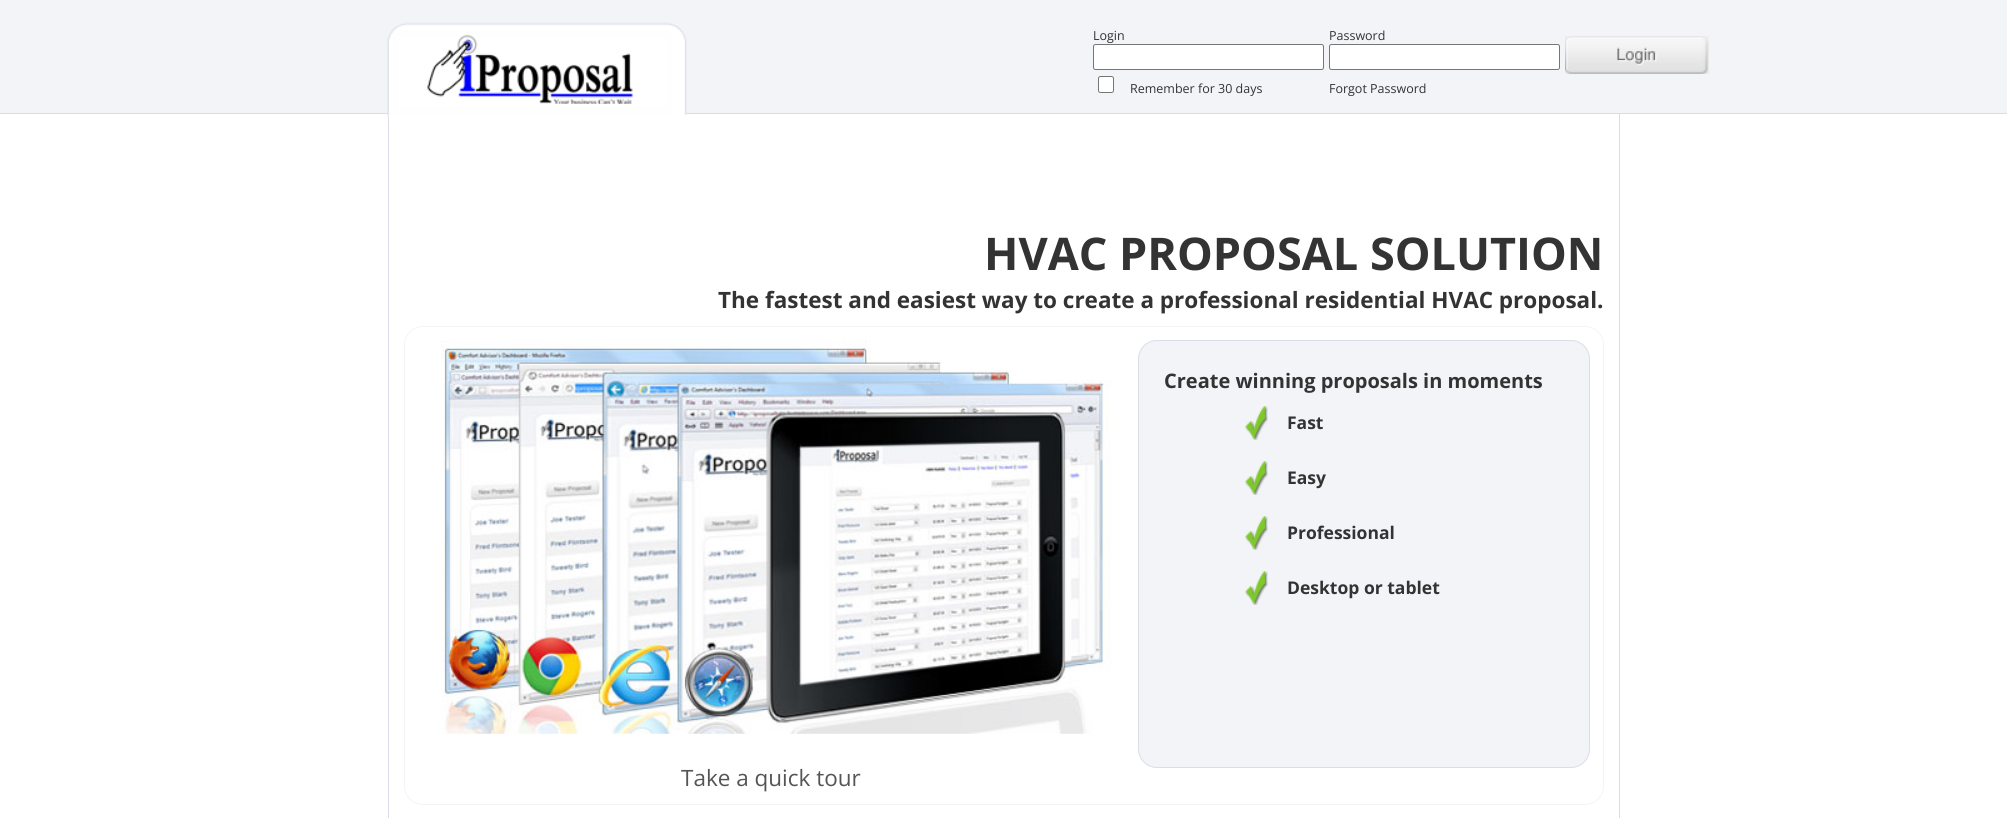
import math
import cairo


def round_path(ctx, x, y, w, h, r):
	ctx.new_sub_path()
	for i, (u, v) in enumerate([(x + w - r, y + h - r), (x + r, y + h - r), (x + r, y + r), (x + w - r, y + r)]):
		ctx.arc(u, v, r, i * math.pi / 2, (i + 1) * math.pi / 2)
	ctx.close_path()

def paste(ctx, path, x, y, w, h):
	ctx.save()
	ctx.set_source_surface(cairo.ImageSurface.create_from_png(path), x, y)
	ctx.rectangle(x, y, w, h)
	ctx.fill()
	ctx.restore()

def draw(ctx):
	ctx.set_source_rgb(1, 1, 1)
	ctx.paint()
	ctx.set_source_rgb(0.953, 0.957, 0.969)
	ctx.rectangle(0, 0, 2007, 113)
	ctx.fill()
	ctx.set_source_rgb(0.855, 0.867, 0.906)
	ctx.rectangle(0, 113, 2007, 1)
	ctx.rectangle(388, 114, 1, 704)
	ctx.fill()
	paste(ctx, 'media/1.png', 387, 22, 300, 97)
	ctx.select_font_face('Open Sans')
	ctx.set_font_size(12.5)
	ctx.set_source_rgb(0.2, 0.2, 0.2)
	ctx.move_to(1093, 40)
	ctx.show_text('Login')
	ctx.set_source_rgb(1, 1, 1)
	round_path(ctx, 1093.5, 44.5, 230, 25, 2)
	ctx.fill_preserve()
	ctx.set_source_rgb(0.463, 0.463, 0.463)
	ctx.set_line_width(1)
	ctx.stroke()
	ctx.set_source_rgb(0.2, 0.2, 0.2)
	ctx.move_to(1329, 40)
	ctx.show_text('Password')
	ctx.set_source_rgb(1, 1, 1)
	round_path(ctx, 1329.5, 44.5, 230, 25, 2)
	ctx.fill_preserve()
	ctx.set_source_rgb(0.463, 0.463, 0.463)
	ctx.stroke()
	ctx.set_source_rgb(0.937, 0.937, 0.937)
	ctx.rectangle(1565, 36, 144, 38)
	ctx.fill()
	paste(ctx, 'media/2.png', 1565, 36, 144, 38)
	ctx.set_source_rgb(1, 1, 1)
	round_path(ctx, 1098.5, 76.5, 15, 16, 2)
	ctx.fill_preserve()
	ctx.set_source_rgb(0.463, 0.463, 0.463)
	ctx.stroke()
	ctx.set_source_rgb(0.2, 0.2, 0.2)
	ctx.move_to(1130, 93)
	ctx.show_text('Remember for 30 days')
	ctx.move_to(1329, 93)
	ctx.show_text('Forgot Password')
	ctx.set_source_rgb(0.855, 0.867, 0.906)
	ctx.rectangle(1619, 114, 1, 704)
	ctx.fill()
	ctx.select_font_face('Open Sans', cairo.FONT_SLANT_NORMAL, cairo.FONT_WEIGHT_BOLD)
	ctx.set_font_size(45)
	ctx.set_source_rgb(0.2, 0.2, 0.2)
	ctx.move_to(984, 270)
	ctx.show_text('HVAC PROPOSAL SOLUTION')
	ctx.set_font_size(22.5)
	ctx.move_to(718, 308)
	ctx.show_text('The fastest and easiest way to create a professional residential HVAC proposal.')
	round_path(ctx, 404.5, 326.5, 1199, 478, 18.5)
	ctx.set_source_rgb(0.953, 0.957, 0.969)
	ctx.stroke()
	round_path(ctx, 1138.5, 340.5, 451, 427, 18.5)
	ctx.fill_preserve()
	ctx.set_source_rgb(0.855, 0.867, 0.906)
	ctx.stroke()
	ctx.set_font_size(20)
	ctx.set_source_rgb(0.2, 0.2, 0.2)
	ctx.move_to(1164, 388)
	ctx.show_text('Create winning proposals in moments')
	paste(ctx, 'media/3.png', 1245, 406, 23, 34)
	ctx.set_font_size(17.5)
	ctx.move_to(1287, 429)
	ctx.show_text('Fast')
	paste(ctx, 'media/3.png', 1245, 461, 23, 34)
	ctx.move_to(1287, 484)
	ctx.show_text('Easy')
	paste(ctx, 'media/3.png', 1245, 516, 23, 34)
	ctx.move_to(1287, 539)
	ctx.show_text('Professional')
	paste(ctx, 'media/4.png', 1245, 571, 23, 34)
	ctx.move_to(1287, 594)
	ctx.show_text('Desktop or tablet')
	paste(ctx, 'media/5.png', 441, 340, 670, 394)
	ctx.select_font_face('Open Sans')
	ctx.set_font_size(22.5)
	ctx.set_source_rgb(0.333, 0.333, 0.333)
	ctx.move_to(681, 786)
	ctx.show_text('Take a quick tour')


surface = cairo.ImageSurface(cairo.FORMAT_RGB24, 2007, 818)
ctx = cairo.Context(surface)
options = cairo.FontOptions()
options.set_hint_metrics(cairo.HINT_METRICS_OFF)
options.set_hint_style(cairo.HINT_STYLE_NONE)
ctx.set_font_options(options)
ctx.set_miter_limit(4)
draw(ctx)
surface.write_to_png('image.png')
